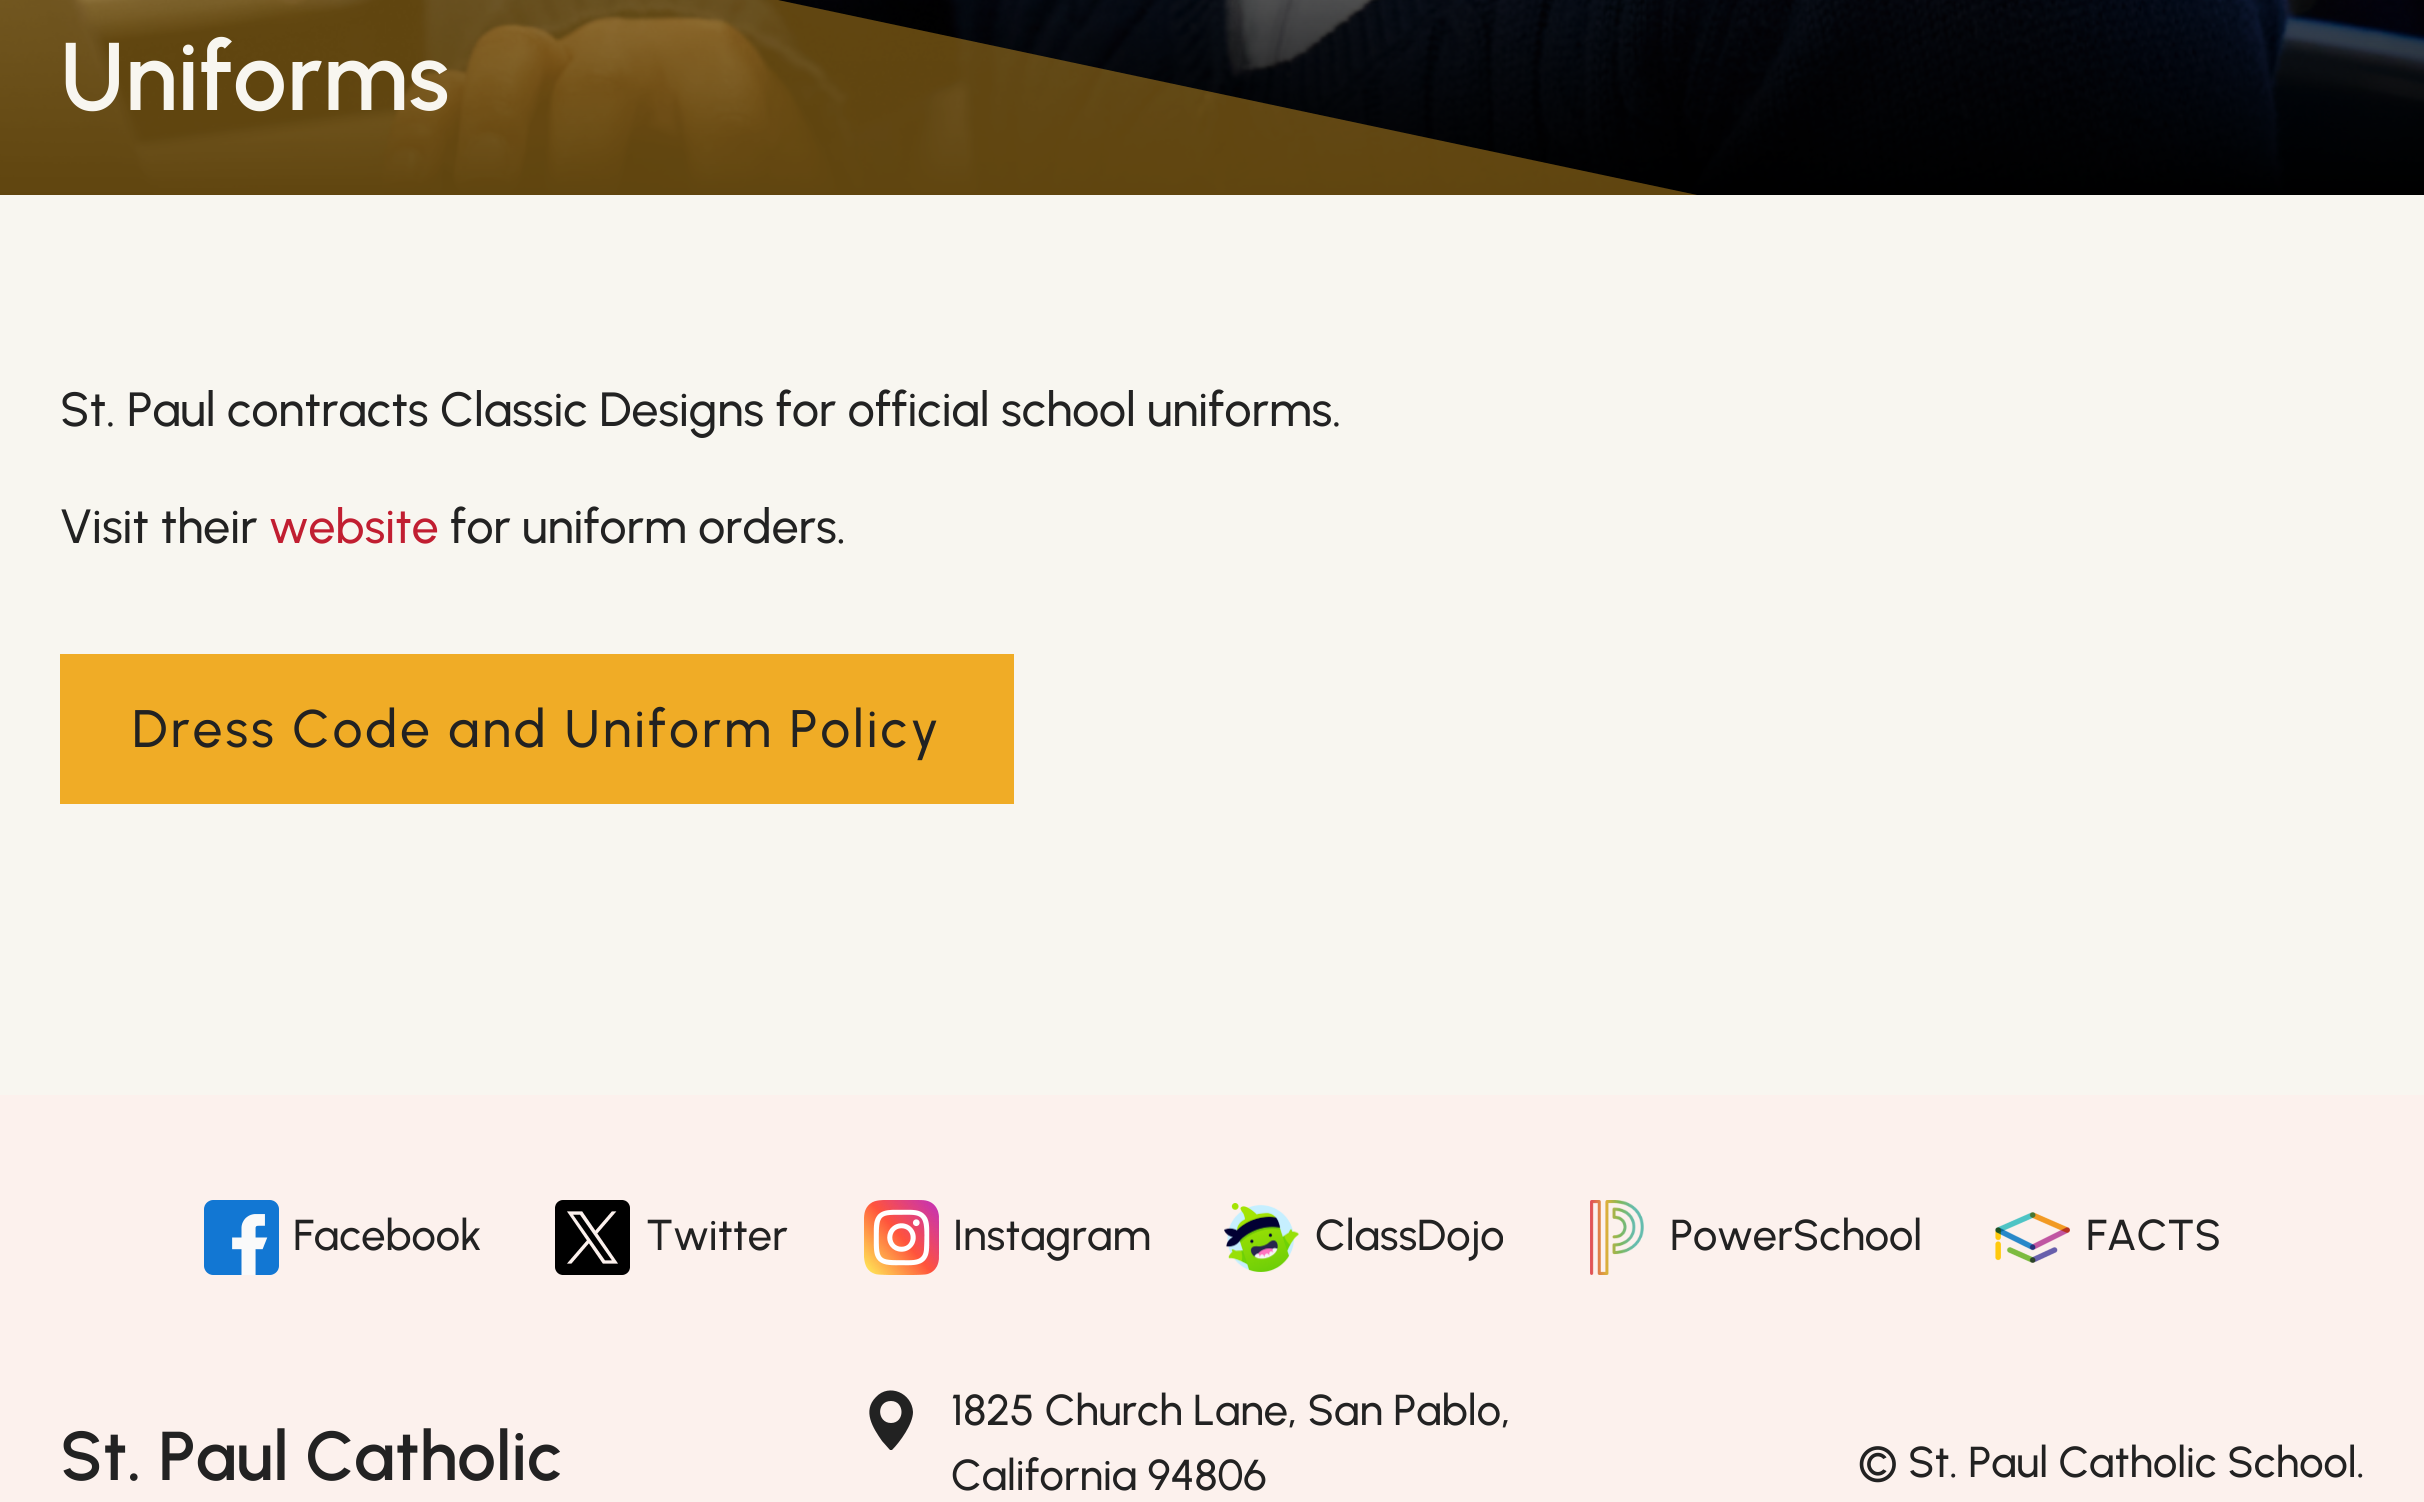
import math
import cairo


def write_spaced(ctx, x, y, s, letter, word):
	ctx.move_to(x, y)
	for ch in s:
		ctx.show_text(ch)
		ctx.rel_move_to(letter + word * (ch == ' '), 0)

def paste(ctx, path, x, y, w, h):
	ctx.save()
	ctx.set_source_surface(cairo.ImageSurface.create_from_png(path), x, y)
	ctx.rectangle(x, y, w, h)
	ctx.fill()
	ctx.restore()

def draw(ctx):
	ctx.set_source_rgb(0.969, 0.961, 0.941)
	ctx.paint()
	paste(ctx, 'media/1.png', 0, 0, 2424, 195)
	ctx.set_source_rgba(0.941, 0.675, 0.149, 0.4)
	ctx.new_path()
	ctx.move_to(0, -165)
	ctx.line_to(0, 195)
	ctx.line_to(1697, 195)
	ctx.close_path()
	ctx.fill()
	ctx.select_font_face('Urbanist SemiBold')
	ctx.set_font_size(96)
	ctx.set_source_rgb(0.969, 0.961, 0.941)
	ctx.move_to(60, 110)
	ctx.show_text('Uniforms')
	ctx.select_font_face('Urbanist Medium')
	ctx.set_font_size(48)
	ctx.set_source_rgb(0.133, 0.133, 0.133)
	ctx.move_to(60, 426)
	ctx.show_text('St. Paul contracts Classic Designs for official school uniforms.')
	ctx.move_to(60, 543)
	ctx.show_text('Visit their')
	ctx.set_source_rgb(0.757, 0.118, 0.192)
	ctx.move_to(269, 543)
	ctx.show_text('website')
	ctx.set_source_rgb(0.133, 0.133, 0.133)
	ctx.move_to(450, 543)
	ctx.show_text('for uniform orders.')
	ctx.set_source_rgb(0.941, 0.675, 0.149)
	ctx.rectangle(60, 654, 954, 150)
	ctx.fill()
	ctx.set_font_size(52.75)
	ctx.set_source_rgb(0.133, 0.133, 0.133)
	write_spaced(ctx, 132, 747, 'Dress Code and Uniform Policy', 3, 0)
	ctx.set_source_rgb(0.988, 0.945, 0.929)
	ctx.rectangle(0, 1095, 2424, 407)
	ctx.fill()
	paste(ctx, 'media/2.png', 204, 1200, 75, 75)
	ctx.set_font_size(43.25)
	ctx.set_source_rgb(0.133, 0.133, 0.133)
	ctx.move_to(293, 1250)
	ctx.show_text('Facebook')
	paste(ctx, 'media/3.png', 555, 1200, 75, 75)
	ctx.move_to(646, 1250)
	ctx.show_text('Twitter')
	paste(ctx, 'media/4.png', 864, 1200, 75, 75)
	ctx.move_to(953, 1250)
	ctx.show_text('Instagram')
	paste(ctx, 'media/5.png', 1224, 1203, 75, 69)
	ctx.move_to(1315, 1250)
	ctx.show_text('ClassDojo')
	paste(ctx, 'media/6.png', 1590, 1200, 54, 75)
	ctx.move_to(1670, 1250)
	ctx.show_text('PowerSchool')
	paste(ctx, 'media/7.png', 1995, 1212, 75, 51)
	ctx.move_to(2086, 1250)
	ctx.show_text('FACTS')
	ctx.select_font_face('Urbanist SemiBold')
	ctx.set_font_size(69)
	ctx.move_to(60, 1480)
	ctx.show_text('St. Paul Catholic')
	ctx.new_path()
	ctx.move_to(876, 1397)
	ctx.curve_to(889, 1383, 912, 1393, 913, 1412)
	ctx.curve_to(913, 1424, 900, 1442, 892, 1450)
	ctx.line_to(890, 1450)
	ctx.line_to(882, 1441)
	ctx.curve_to(873, 1428, 862, 1411, 876, 1397)
	ctx.close_path()
	ctx.move_to(891, 1423)
	ctx.curve_to(905, 1423, 905, 1401, 891, 1401)
	ctx.curve_to(876, 1401, 877, 1423, 891, 1423)
	ctx.close_path()
	ctx.fill()
	ctx.select_font_face('Urbanist Medium')
	ctx.set_font_size(43.25)
	for x, y, s in [
		(951, 1425, '1825 Church Lane, San Pablo,'),
		(951, 1490, 'California 94806'),
		(1858, 1477, '© St. Paul Catholic School.'),
	]:
		ctx.move_to(x, y)
		ctx.show_text(s)


surface = cairo.ImageSurface(cairo.FORMAT_RGB24, 2424, 1502)
ctx = cairo.Context(surface)
options = cairo.FontOptions()
options.set_hint_metrics(cairo.HINT_METRICS_OFF)
options.set_hint_style(cairo.HINT_STYLE_NONE)
ctx.set_font_options(options)
ctx.set_miter_limit(4)
draw(ctx)
surface.write_to_png('image.png')
